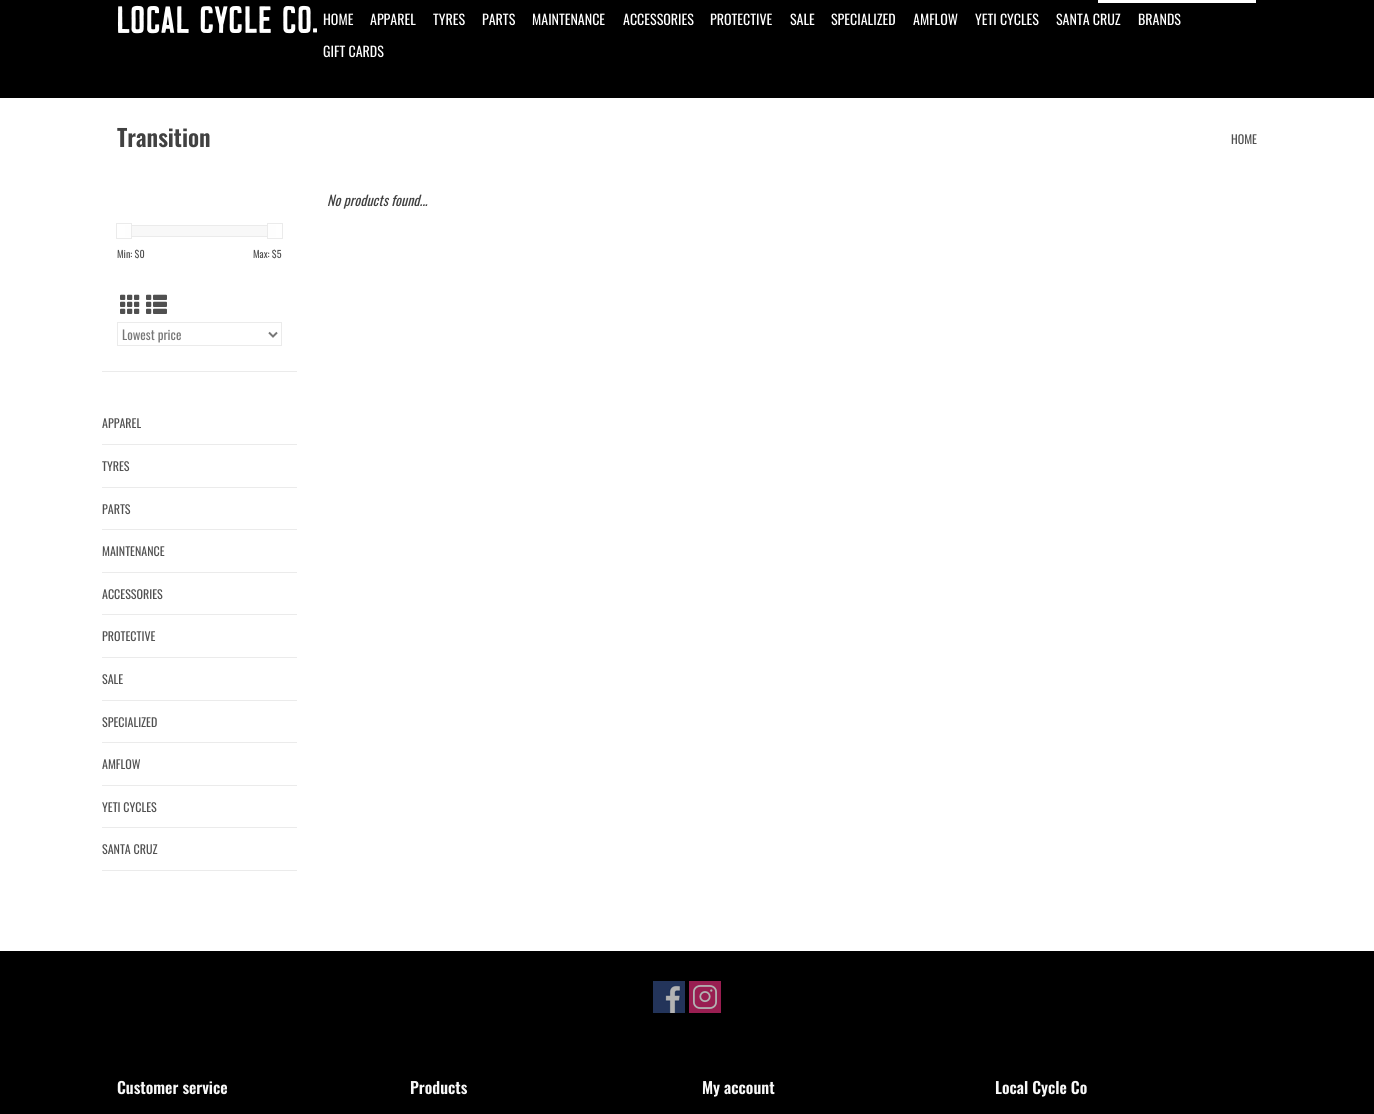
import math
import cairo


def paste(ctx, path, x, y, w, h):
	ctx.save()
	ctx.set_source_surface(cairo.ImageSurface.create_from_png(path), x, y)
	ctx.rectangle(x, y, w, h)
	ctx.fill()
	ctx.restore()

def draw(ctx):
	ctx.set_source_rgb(1, 1, 1)
	ctx.paint()
	ctx.set_source_rgb(0, 0, 0)
	ctx.rectangle(0, 0, 1374, 98)
	ctx.fill()
	paste(ctx, 'media/1.png', 118, 5, 199, 29)
	ctx.set_source_rgb(1, 1, 1)
	ctx.rectangle(1097.5, -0.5, 159, 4)
	ctx.fill_preserve()
	ctx.set_source_rgb(0, 0, 0)
	ctx.set_line_width(1)
	ctx.stroke()
	ctx.select_font_face('Oswald')
	ctx.set_font_size(14)
	ctx.set_source_rgb(1, 1, 1)
	for x, y, s in [
		(323, 25, 'HOME'),
		(370, 25, 'APPAREL'),
		(433, 25, 'TYRES'),
		(482, 25, 'PARTS'),
		(532, 25, 'MAINTENANCE'),
		(623, 25, 'ACCESSORIES'),
		(710, 25, 'PROTECTIVE'),
		(790, 25, 'SALE'),
		(831, 25, 'SPECIALIZED'),
		(913, 25, 'AMFLOW'),
		(975, 25, 'YETI CYCLES'),
		(1056, 25, 'SANTA CRUZ'),
		(1138, 25, 'BRANDS'),
		(323, 57, 'GIFT CARDS'),
	]:
		ctx.move_to(x, y)
		ctx.show_text(s)
	ctx.select_font_face('Oswald SemiBold')
	ctx.set_font_size(23.5)
	ctx.set_source_rgb(0.255, 0.255, 0.255)
	ctx.move_to(117, 147)
	ctx.show_text('Transition')
	ctx.select_font_face('Oswald')
	ctx.set_font_size(12)
	ctx.set_source_rgb(0.314, 0.314, 0.314)
	ctx.move_to(1231, 144)
	ctx.show_text('HOME')
	ctx.select_font_face('Oswald', cairo.FONT_SLANT_ITALIC)
	ctx.set_font_size(14)
	ctx.set_source_rgb(0.255, 0.255, 0.255)
	ctx.move_to(327, 206)
	ctx.show_text('No products found...')
	ctx.set_source_rgb(0.918, 0.918, 0.918)
	ctx.rectangle(102, 371, 195, 1)
	ctx.fill()
	ctx.set_source_rgb(0.969, 0.969, 0.969)
	ctx.rectangle(132, 226, 135, 10)
	ctx.fill()
	ctx.rectangle(125.5, 225.5, 150, 11)
	ctx.set_source_rgb(0.918, 0.918, 0.918)
	ctx.stroke()
	ctx.set_source_rgb(0.996, 0.996, 0.996)
	ctx.rectangle(125, 225, 6, 12)
	ctx.fill()
	ctx.rectangle(116.5, 223.5, 15, 15)
	ctx.set_source_rgb(0.918, 0.918, 0.918)
	ctx.stroke()
	ctx.set_source_rgb(0.996, 0.996, 0.996)
	ctx.rectangle(268, 225, 8, 12)
	ctx.fill()
	ctx.rectangle(267.5, 223.5, 15, 15)
	ctx.set_source_rgb(0.918, 0.918, 0.918)
	ctx.stroke()
	ctx.select_font_face('Oswald')
	ctx.set_font_size(10)
	ctx.set_source_rgb(0.314, 0.314, 0.314)
	ctx.move_to(117, 258)
	ctx.show_text('Min: $0')
	ctx.move_to(253, 258)
	ctx.show_text('Max: $5')
	paste(ctx, 'media/2.png', 120, 294, 20, 20)
	paste(ctx, 'media/3.png', 146, 294, 21, 20)
	ctx.rectangle(117.5, 322.5, 164, 23)
	ctx.set_source_rgb(0.918, 0.918, 0.918)
	ctx.stroke()
	ctx.new_path()
	ctx.move_to(269, 332.5)
	ctx.line_to(273, 336.5)
	ctx.line_to(277, 332.5)
	ctx.set_source_rgb(0.467, 0.467, 0.467)
	ctx.set_line_width(2)
	ctx.stroke()
	ctx.set_font_size(13)
	ctx.move_to(122, 340)
	ctx.show_text('Lowest price')
	ctx.set_source_rgb(0.918, 0.918, 0.918)
	ctx.rectangle(102, 444, 195, 1)
	ctx.fill()
	ctx.set_font_size(12)
	ctx.set_source_rgb(0.314, 0.314, 0.314)
	ctx.move_to(102, 428)
	ctx.show_text('APPAREL')
	ctx.set_source_rgb(0.918, 0.918, 0.918)
	ctx.rectangle(102, 487, 195, 1)
	ctx.fill()
	ctx.set_source_rgb(0.314, 0.314, 0.314)
	ctx.move_to(102, 471)
	ctx.show_text('TYRES')
	ctx.set_source_rgb(0.918, 0.918, 0.918)
	ctx.rectangle(102, 529, 195, 1)
	ctx.fill()
	ctx.set_source_rgb(0.314, 0.314, 0.314)
	ctx.move_to(102, 514)
	ctx.show_text('PARTS')
	ctx.set_source_rgb(0.918, 0.918, 0.918)
	ctx.rectangle(102, 572, 195, 1)
	ctx.fill()
	ctx.set_source_rgb(0.314, 0.314, 0.314)
	ctx.move_to(102, 556)
	ctx.show_text('MAINTENANCE')
	ctx.set_source_rgb(0.918, 0.918, 0.918)
	ctx.rectangle(102, 614, 195, 1)
	ctx.fill()
	ctx.set_source_rgb(0.314, 0.314, 0.314)
	ctx.move_to(102, 599)
	ctx.show_text('ACCESSORIES')
	ctx.set_source_rgb(0.918, 0.918, 0.918)
	ctx.rectangle(102, 657, 195, 1)
	ctx.fill()
	ctx.set_source_rgb(0.314, 0.314, 0.314)
	ctx.move_to(102, 641)
	ctx.show_text('PROTECTIVE')
	ctx.set_source_rgb(0.918, 0.918, 0.918)
	ctx.rectangle(102, 700, 195, 1)
	ctx.fill()
	ctx.set_source_rgb(0.314, 0.314, 0.314)
	ctx.move_to(102, 684)
	ctx.show_text('SALE')
	ctx.set_source_rgb(0.918, 0.918, 0.918)
	ctx.rectangle(102, 742, 195, 1)
	ctx.fill()
	ctx.set_source_rgb(0.314, 0.314, 0.314)
	ctx.move_to(102, 727)
	ctx.show_text('SPECIALIZED')
	ctx.set_source_rgb(0.918, 0.918, 0.918)
	ctx.rectangle(102, 785, 195, 1)
	ctx.fill()
	ctx.set_source_rgb(0.314, 0.314, 0.314)
	ctx.move_to(102, 769)
	ctx.show_text('AMFLOW')
	ctx.set_source_rgb(0.918, 0.918, 0.918)
	ctx.rectangle(102, 827, 195, 1)
	ctx.fill()
	ctx.set_source_rgb(0.314, 0.314, 0.314)
	ctx.move_to(102, 812)
	ctx.show_text('YETI CYCLES')
	ctx.set_source_rgb(0.918, 0.918, 0.918)
	ctx.rectangle(102, 870, 195, 1)
	ctx.fill()
	ctx.set_source_rgb(0.314, 0.314, 0.314)
	ctx.move_to(102, 854)
	ctx.show_text('SANTA CRUZ')
	ctx.set_source_rgb(0, 0, 0)
	ctx.rectangle(0, 951, 1374, 163)
	ctx.fill()
	paste(ctx, 'media/4.png', 653, 981, 32, 32)
	paste(ctx, 'media/5.png', 689, 981, 32, 32)
	ctx.select_font_face('Oswald SemiBold')
	ctx.set_font_size(16)
	ctx.set_source_rgb(0.969, 0.969, 0.969)
	for x, y, s in [
		(117, 1094, 'Customer service'),
		(410, 1094, 'Products'),
		(702, 1094, 'My account'),
		(995, 1094, 'Local Cycle Co'),
	]:
		ctx.move_to(x, y)
		ctx.show_text(s)


surface = cairo.ImageSurface(cairo.FORMAT_RGB24, 1374, 1114)
ctx = cairo.Context(surface)
options = cairo.FontOptions()
options.set_hint_metrics(cairo.HINT_METRICS_OFF)
options.set_hint_style(cairo.HINT_STYLE_NONE)
ctx.set_font_options(options)
ctx.set_miter_limit(4)
draw(ctx)
surface.write_to_png('image.png')
